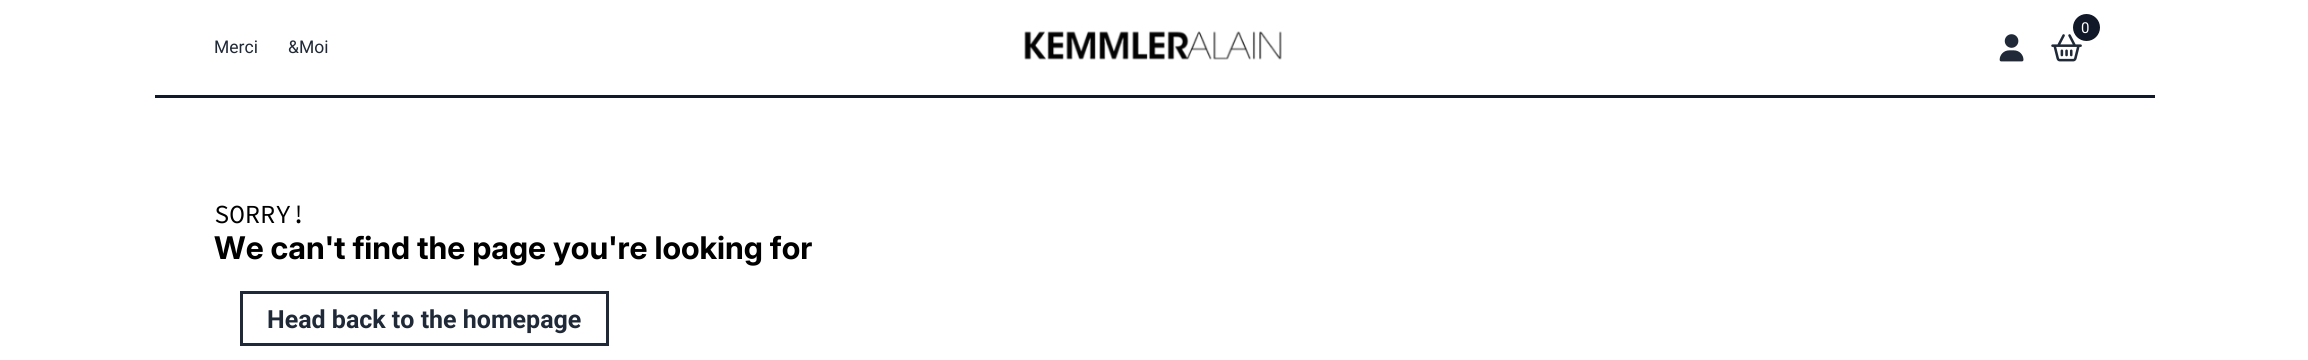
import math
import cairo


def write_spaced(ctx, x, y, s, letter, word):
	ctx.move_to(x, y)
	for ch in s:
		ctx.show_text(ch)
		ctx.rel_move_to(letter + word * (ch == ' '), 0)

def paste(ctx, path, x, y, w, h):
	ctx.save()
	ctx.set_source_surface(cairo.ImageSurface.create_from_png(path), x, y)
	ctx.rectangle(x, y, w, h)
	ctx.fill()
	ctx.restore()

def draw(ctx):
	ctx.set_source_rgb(1, 1, 1)
	ctx.paint()
	ctx.set_source_rgb(0.067, 0.094, 0.153)
	ctx.rectangle(155, 95, 2000, 3)
	ctx.fill()
	paste(ctx, 'media/1.png', 2051, 34, 31, 28)
	ctx.arc(2086.5, 27.5, 13.5, 0, 2 * math.pi)
	ctx.fill()
	ctx.select_font_face('Roboto')
	ctx.set_font_size(15)
	ctx.set_source_rgb(1, 1, 1)
	ctx.move_to(2081, 33)
	ctx.show_text('0')
	paste(ctx, 'media/2.png', 1999, 34, 25, 28)
	ctx.set_font_size(17.5)
	ctx.set_source_rgb(0.122, 0.161, 0.216)
	ctx.move_to(214, 53)
	ctx.show_text('Merci')
	ctx.move_to(288, 53)
	ctx.show_text('&Moi')
	paste(ctx, 'media/3.png', 1024, 31, 258, 29)
	ctx.select_font_face('Source Code Pro')
	ctx.set_font_size(26)
	ctx.set_source_rgb(0, 0, 0)
	write_spaced(ctx, 214, 223, 'SORRY!', -0.25, 0)
	ctx.select_font_face('Inter', cairo.FONT_SLANT_NORMAL, cairo.FONT_WEIGHT_BOLD)
	ctx.set_font_size(31.25)
	ctx.move_to(214, 259)
	ctx.show_text('We can\'t find the page you\'re looking for')
	ctx.rectangle(241.5, 292.5, 366, 52)
	ctx.set_source_rgb(0.122, 0.161, 0.216)
	ctx.set_line_width(3)
	ctx.stroke()
	ctx.select_font_face('Roboto', cairo.FONT_SLANT_NORMAL, cairo.FONT_WEIGHT_BOLD)
	ctx.set_font_size(25)
	ctx.move_to(267, 328)
	ctx.show_text('Head back to the homepage')


surface = cairo.ImageSurface(cairo.FORMAT_RGB24, 2308, 360)
ctx = cairo.Context(surface)
options = cairo.FontOptions()
options.set_hint_metrics(cairo.HINT_METRICS_OFF)
options.set_hint_style(cairo.HINT_STYLE_NONE)
ctx.set_font_options(options)
ctx.set_miter_limit(4)
draw(ctx)
surface.write_to_png('image.png')
